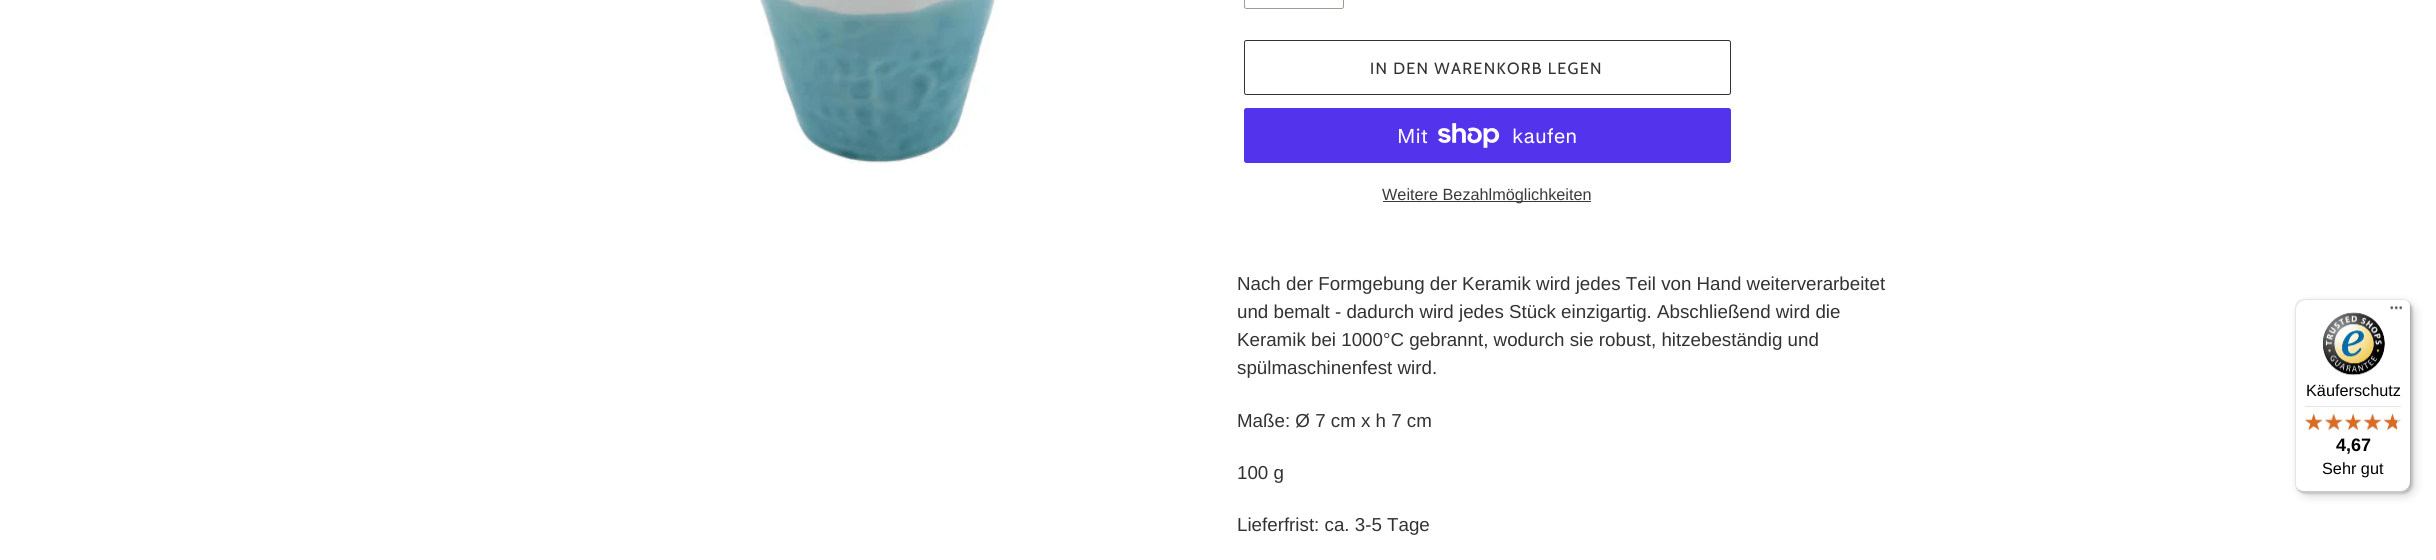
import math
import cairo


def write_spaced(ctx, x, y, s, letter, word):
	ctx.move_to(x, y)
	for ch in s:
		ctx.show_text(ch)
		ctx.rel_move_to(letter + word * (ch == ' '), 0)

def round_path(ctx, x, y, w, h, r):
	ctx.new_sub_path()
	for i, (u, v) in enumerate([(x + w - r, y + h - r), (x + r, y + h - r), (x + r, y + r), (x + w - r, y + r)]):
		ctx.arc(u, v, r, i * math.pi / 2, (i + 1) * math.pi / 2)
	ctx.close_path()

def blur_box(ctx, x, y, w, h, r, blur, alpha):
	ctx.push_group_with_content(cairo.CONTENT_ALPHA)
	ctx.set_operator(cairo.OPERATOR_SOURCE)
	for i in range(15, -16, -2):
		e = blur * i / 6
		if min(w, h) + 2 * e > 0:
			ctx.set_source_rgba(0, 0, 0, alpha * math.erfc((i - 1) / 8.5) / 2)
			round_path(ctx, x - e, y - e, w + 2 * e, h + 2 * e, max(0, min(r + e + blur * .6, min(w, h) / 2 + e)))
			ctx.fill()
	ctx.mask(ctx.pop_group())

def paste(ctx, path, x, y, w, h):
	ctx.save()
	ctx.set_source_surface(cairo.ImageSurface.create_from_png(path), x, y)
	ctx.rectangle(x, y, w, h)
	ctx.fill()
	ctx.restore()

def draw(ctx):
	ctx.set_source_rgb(1, 1, 1)
	ctx.paint()
	paste(ctx, 'media/1.png', 759, 0, 238, 164)
	round_path(ctx, 1244.5, -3.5, 99, 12, 2)
	ctx.set_source_rgb(0.627, 0.608, 0.584)
	ctx.set_line_width(1)
	ctx.stroke()
	round_path(ctx, 1244.5, 40.5, 486, 54, 2)
	ctx.set_source_rgb(0.2, 0.196, 0.196)
	ctx.stroke()
	ctx.select_font_face('Cabin')
	ctx.set_font_size(16.25)
	write_spaced(ctx, 1370, 74, 'IN DEN WARENKORB LEGEN', 1.3, 0)
	ctx.set_source_rgb(0.329, 0.2, 0.922)
	round_path(ctx, 1244, 108, 487, 55, 2.5)
	ctx.fill()
	ctx.select_font_face('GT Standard')
	ctx.set_font_size(20)
	ctx.set_source_rgb(1, 1, 1)
	ctx.move_to(1397, 143)
	ctx.show_text('Mit')
	paste(ctx, 'media/2.png', 1438, 123, 62, 25)
	ctx.move_to(1512, 143)
	ctx.show_text('kaufen')
	ctx.set_source_rgb(0.227, 0.227, 0.227)
	ctx.rectangle(1383, 201, 208, 1)
	ctx.fill()
	ctx.select_font_face('Liberation Sans')
	ctx.set_font_size(16.25)
	ctx.move_to(1382, 200)
	ctx.show_text('Weitere Bezahlmöglichkeiten')
	ctx.set_font_size(18.75)
	ctx.set_source_rgb(0.2, 0.196, 0.196)
	for x, y, s in [
		(1237, 290, 'Nach der Formgebung der Keramik wird jedes Teil von Hand weiterverarbeitet'),
		(1237, 318, 'und bemalt - dadurch wird jedes Stück einzigartig. Abschließend wird die'),
		(1237, 346, 'Keramik bei 1000°C gebrannt, wodurch sie robust, hitzebeständig und'),
		(1237, 374, 'spülmaschinenfest wird.'),
		(1237, 427, 'Maße: Ø 7 cm x h 7 cm'),
		(1237, 479, '100 g'),
		(1237, 531, 'Lieferfrist: ca. 3-5 Tage'),
	]:
		ctx.move_to(x, y)
		ctx.show_text(s)
	ctx.set_source_rgb(0, 0, 0)
	blur_box(ctx, 2299, 303, 116, 193, 10, 5, 0.15)
	blur_box(ctx, 2296, 300, 117, 194, 10, 1, 0.15)
	ctx.set_source_rgb(1, 1, 1)
	round_path(ctx, 2295, 299, 116, 194, 10)
	ctx.fill()
	ctx.set_source_rgba(0, 0, 0, 0.1)
	ctx.new_path()
	ctx.move_to(2306, 300)
	ctx.line_to(2402, 300)
	ctx.curve_to(2404, 300, 2406, 300, 2407, 301)
	ctx.curve_to(2406, 300, 2403, 299, 2401, 299)
	ctx.line_to(2305, 299)
	ctx.curve_to(2299, 299, 2295, 303, 2295, 309)
	ctx.line_to(2295, 483)
	ctx.curve_to(2295, 487, 2297, 490, 2300, 492)
	ctx.curve_to(2298, 490, 2296, 487, 2296, 484)
	ctx.line_to(2296, 310)
	ctx.curve_to(2296, 304, 2301, 300, 2306, 300)
	ctx.close_path()
	ctx.fill()
	ctx.set_source_rgba(0, 0, 0, 0.2)
	ctx.new_path()
	ctx.move_to(2296, 487)
	ctx.curve_to(2298, 491, 2301, 493, 2305, 493)
	ctx.line_to(2401, 493)
	ctx.curve_to(2407, 493, 2411, 489, 2411, 483)
	ctx.line_to(2411, 309)
	ctx.curve_to(2411, 307, 2410, 304, 2409, 303)
	ctx.curve_to(2410, 304, 2410, 306, 2410, 308)
	ctx.line_to(2410, 481)
	ctx.curve_to(2410, 487, 2406, 491, 2400, 491)
	ctx.line_to(2304, 491)
	ctx.curve_to(2301, 491, 2298, 490, 2296, 487)
	ctx.close_path()
	ctx.fill()
	ctx.set_source_rgba(0.196, 0.196, 0.196, 0.2)
	ctx.new_path()
	ctx.move_to(2296, 488)
	ctx.curve_to(2298, 491, 2301, 493, 2305, 493)
	ctx.line_to(2401, 493)
	ctx.curve_to(2407, 493, 2411, 489, 2411, 483)
	ctx.line_to(2411, 309)
	ctx.curve_to(2411, 307, 2410, 304, 2409, 303)
	ctx.curve_to(2410, 304, 2410, 306, 2410, 308)
	ctx.line_to(2410, 482)
	ctx.curve_to(2410, 487, 2406, 492, 2400, 492)
	ctx.line_to(2304, 492)
	ctx.curve_to(2301, 492, 2298, 490, 2296, 488)
	ctx.close_path()
	ctx.fill()
	paste(ctx, 'media/3.png', 2390, 306, 13, 4)
	ctx.set_source_rgba(1, 1, 1, 0.3)
	ctx.new_path()
	ctx.move_to(2296, 488)
	ctx.curve_to(2298, 491, 2301, 493, 2305, 493)
	ctx.line_to(2401, 493)
	ctx.curve_to(2407, 493, 2411, 489, 2411, 483)
	ctx.line_to(2411, 482)
	ctx.curve_to(2411, 487, 2406, 492, 2401, 492)
	ctx.line_to(2304, 492)
	ctx.curve_to(2301, 492, 2298, 490, 2296, 488)
	ctx.close_path()
	ctx.fill()
	paste(ctx, 'media/4.png', 2323, 312, 62, 64)
	ctx.set_font_size(16.25)
	ctx.set_source_rgb(0, 0, 0)
	ctx.move_to(2306, 396)
	ctx.show_text('Käuferschutz')
	ctx.set_source_rgb(0.898, 0.898, 0.898)
	ctx.rectangle(2305, 406, 96, 1)
	ctx.fill()
	paste(ctx, 'media/10.png', 2305, 414, 17, 16)
	paste(ctx, 'media/5.png', 2305, 413, 17, 17)
	paste(ctx, 'media/11.png', 2325, 414, 17, 16)
	paste(ctx, 'media/6.png', 2325, 413, 18, 17)
	paste(ctx, 'media/12.png', 2345, 414, 16, 16)
	paste(ctx, 'media/7.png', 2345, 413, 16, 17)
	paste(ctx, 'media/13.png', 2363, 414, 18, 16)
	paste(ctx, 'media/8.png', 2363, 413, 18, 17)
	paste(ctx, 'media/14.png', 2384, 414, 17, 16)
	paste(ctx, 'media/9.png', 2384, 413, 13, 17)
	ctx.select_font_face('Liberation Sans', cairo.FONT_SLANT_NORMAL, cairo.FONT_WEIGHT_BOLD)
	ctx.set_font_size(18)
	ctx.set_source_rgb(0, 0, 0)
	ctx.move_to(2336, 451)
	ctx.show_text('4,67')
	ctx.select_font_face('Liberation Sans')
	ctx.set_font_size(16.25)
	ctx.move_to(2322, 474)
	ctx.show_text('Sehr gut')


surface = cairo.ImageSurface(cairo.FORMAT_RGB24, 2436, 560)
ctx = cairo.Context(surface)
options = cairo.FontOptions()
options.set_hint_metrics(cairo.HINT_METRICS_OFF)
options.set_hint_style(cairo.HINT_STYLE_NONE)
ctx.set_font_options(options)
ctx.set_miter_limit(4)
draw(ctx)
surface.write_to_png('image.png')
